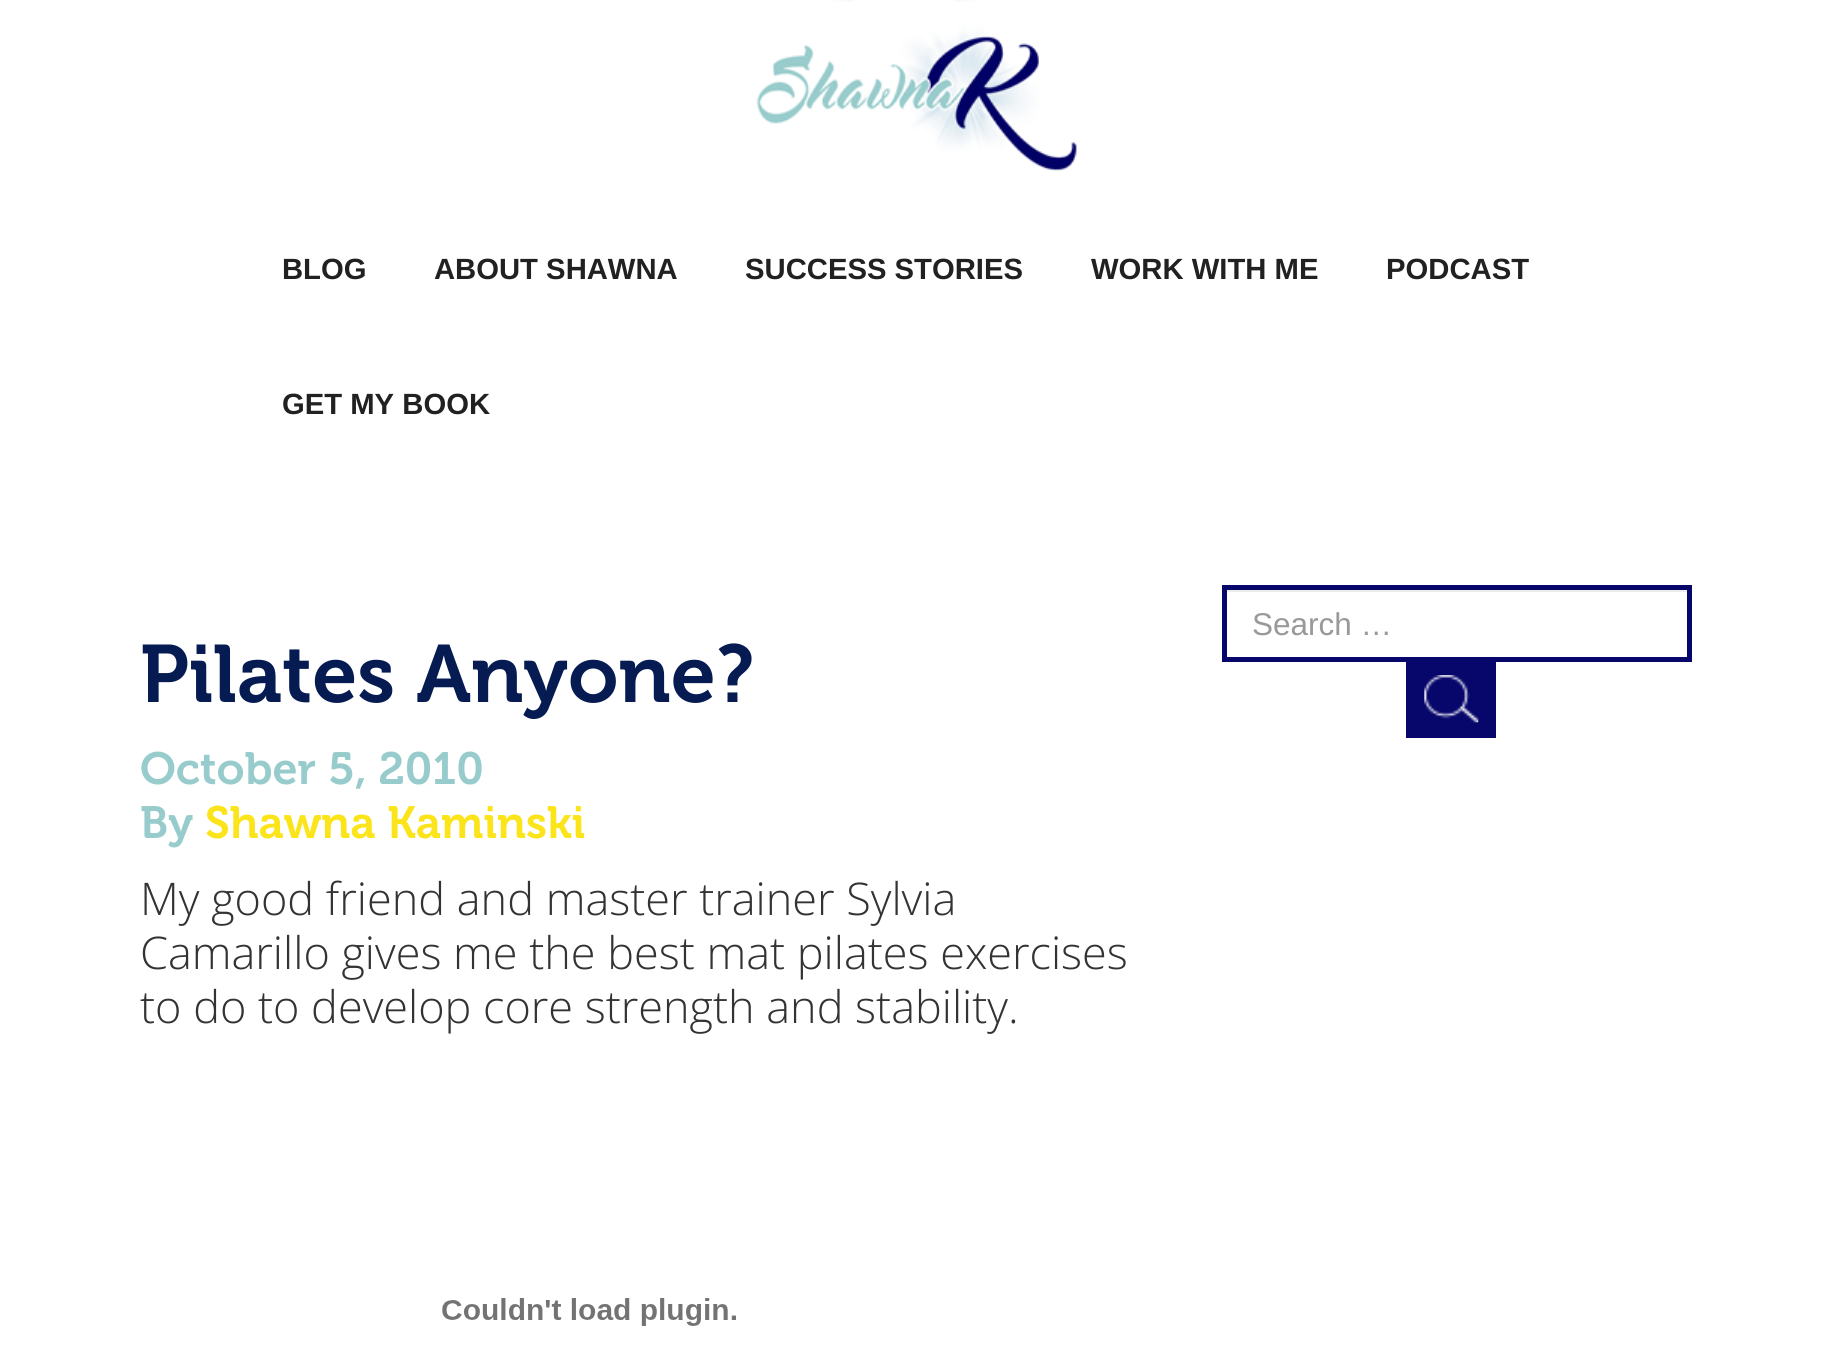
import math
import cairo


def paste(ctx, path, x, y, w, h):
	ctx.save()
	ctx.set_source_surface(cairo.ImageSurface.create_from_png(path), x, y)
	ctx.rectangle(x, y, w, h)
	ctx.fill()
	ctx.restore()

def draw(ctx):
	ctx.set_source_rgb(1, 1, 1)
	ctx.paint()
	paste(ctx, 'media/1.png', 756, 0, 321, 171)
	ctx.select_font_face('Liberation Sans', cairo.FONT_SLANT_NORMAL, cairo.FONT_WEIGHT_BOLD)
	ctx.set_font_size(29.25)
	ctx.set_source_rgb(0.129, 0.129, 0.129)
	for x, y, s in [
		(282, 279, 'BLOG'),
		(434, 279, 'ABOUT SHAWNA'),
		(745, 279, 'SUCCESS STORIES'),
		(1091, 279, 'WORK WITH ME'),
		(1386, 279, 'PODCAST'),
		(282, 414, 'GET MY BOOK'),
	]:
		ctx.move_to(x, y)
		ctx.show_text(s)
	ctx.set_source_rgb(0.925, 0.925, 0.925)
	ctx.rectangle(1226, 590, 462, 2)
	ctx.fill()
	ctx.rectangle(1224.5, 587.5, 465, 72)
	ctx.set_source_rgb(0.031, 0.031, 0.42)
	ctx.set_line_width(5)
	ctx.stroke()
	ctx.select_font_face('Liberation Sans')
	ctx.set_font_size(31.5)
	ctx.set_source_rgb(0.6, 0.6, 0.6)
	ctx.move_to(1252, 635)
	ctx.show_text('Search …')
	ctx.set_source_rgb(0.031, 0.031, 0.42)
	ctx.rectangle(1406, 662, 90, 76)
	ctx.fill()
	paste(ctx, 'media/2.png', 1424, 675, 55, 48)
	ctx.select_font_face('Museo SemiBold')
	ctx.set_font_size(81)
	ctx.set_source_rgb(0.02, 0.106, 0.322)
	ctx.move_to(140, 702)
	ctx.show_text('Pilates Anyone?')
	ctx.set_font_size(45)
	ctx.set_source_rgb(0.596, 0.8, 0.8)
	ctx.move_to(140, 784)
	ctx.show_text('October 5, 2010')
	ctx.move_to(140, 838)
	ctx.show_text('By')
	ctx.set_source_rgb(0.984, 0.894, 0.102)
	ctx.move_to(205, 838)
	ctx.show_text('Shawna Kaminski')
	ctx.select_font_face('Open Sans Light')
	ctx.set_source_rgb(0.2, 0.2, 0.2)
	for x, y, s in [
		(140, 915, 'My good friend and master trainer Sylvia'),
		(140, 969, 'Camarillo gives me the best mat pilates exercises'),
		(140, 1023, 'to do to develop core strength and stability.'),
	]:
		ctx.move_to(x, y)
		ctx.show_text(s)
	paste(ctx, 'media/3.png', 442, 1298, 294, 28)


surface = cairo.ImageSurface(cairo.FORMAT_RGB24, 1830, 1352)
ctx = cairo.Context(surface)
options = cairo.FontOptions()
options.set_hint_metrics(cairo.HINT_METRICS_OFF)
options.set_hint_style(cairo.HINT_STYLE_NONE)
ctx.set_font_options(options)
ctx.set_miter_limit(4)
draw(ctx)
surface.write_to_png('image.png')
